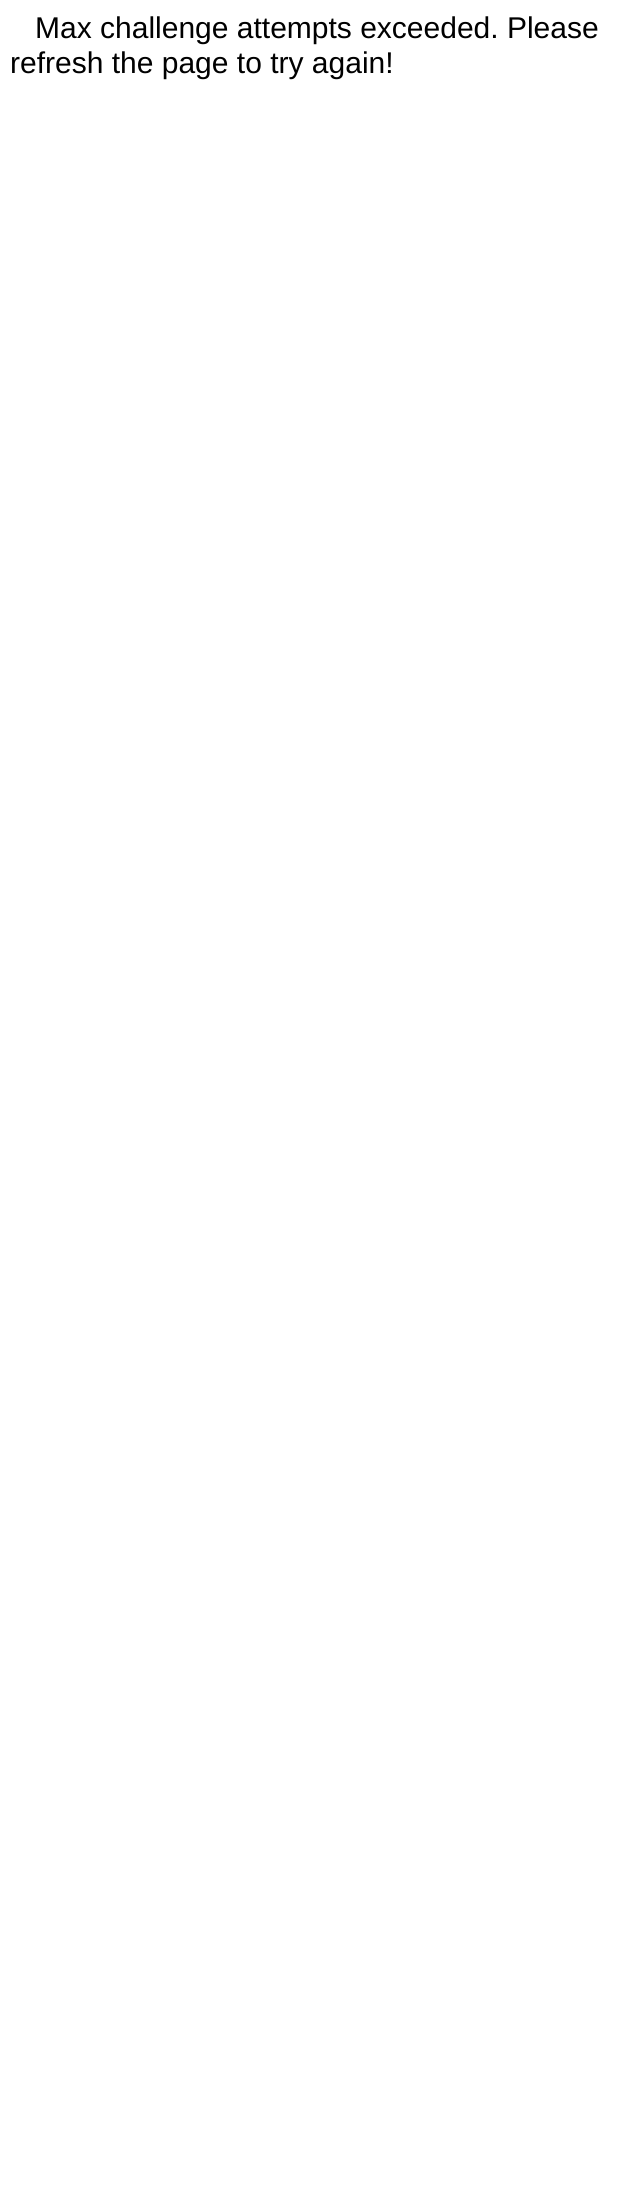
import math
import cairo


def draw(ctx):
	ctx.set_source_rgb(1, 1, 1)
	ctx.paint()
	ctx.select_font_face('Liberation Sans')
	ctx.set_font_size(30)
	ctx.set_source_rgb(0, 0, 0)
	ctx.move_to(35, 38)
	ctx.show_text('Max challenge attempts exceeded. Please')
	ctx.move_to(10, 73)
	ctx.show_text('refresh the page to try again!')


surface = cairo.ImageSurface(cairo.FORMAT_RGB24, 633, 2200)
ctx = cairo.Context(surface)
options = cairo.FontOptions()
options.set_hint_metrics(cairo.HINT_METRICS_OFF)
options.set_hint_style(cairo.HINT_STYLE_NONE)
ctx.set_font_options(options)
ctx.set_miter_limit(4)
draw(ctx)
surface.write_to_png('image.png')
